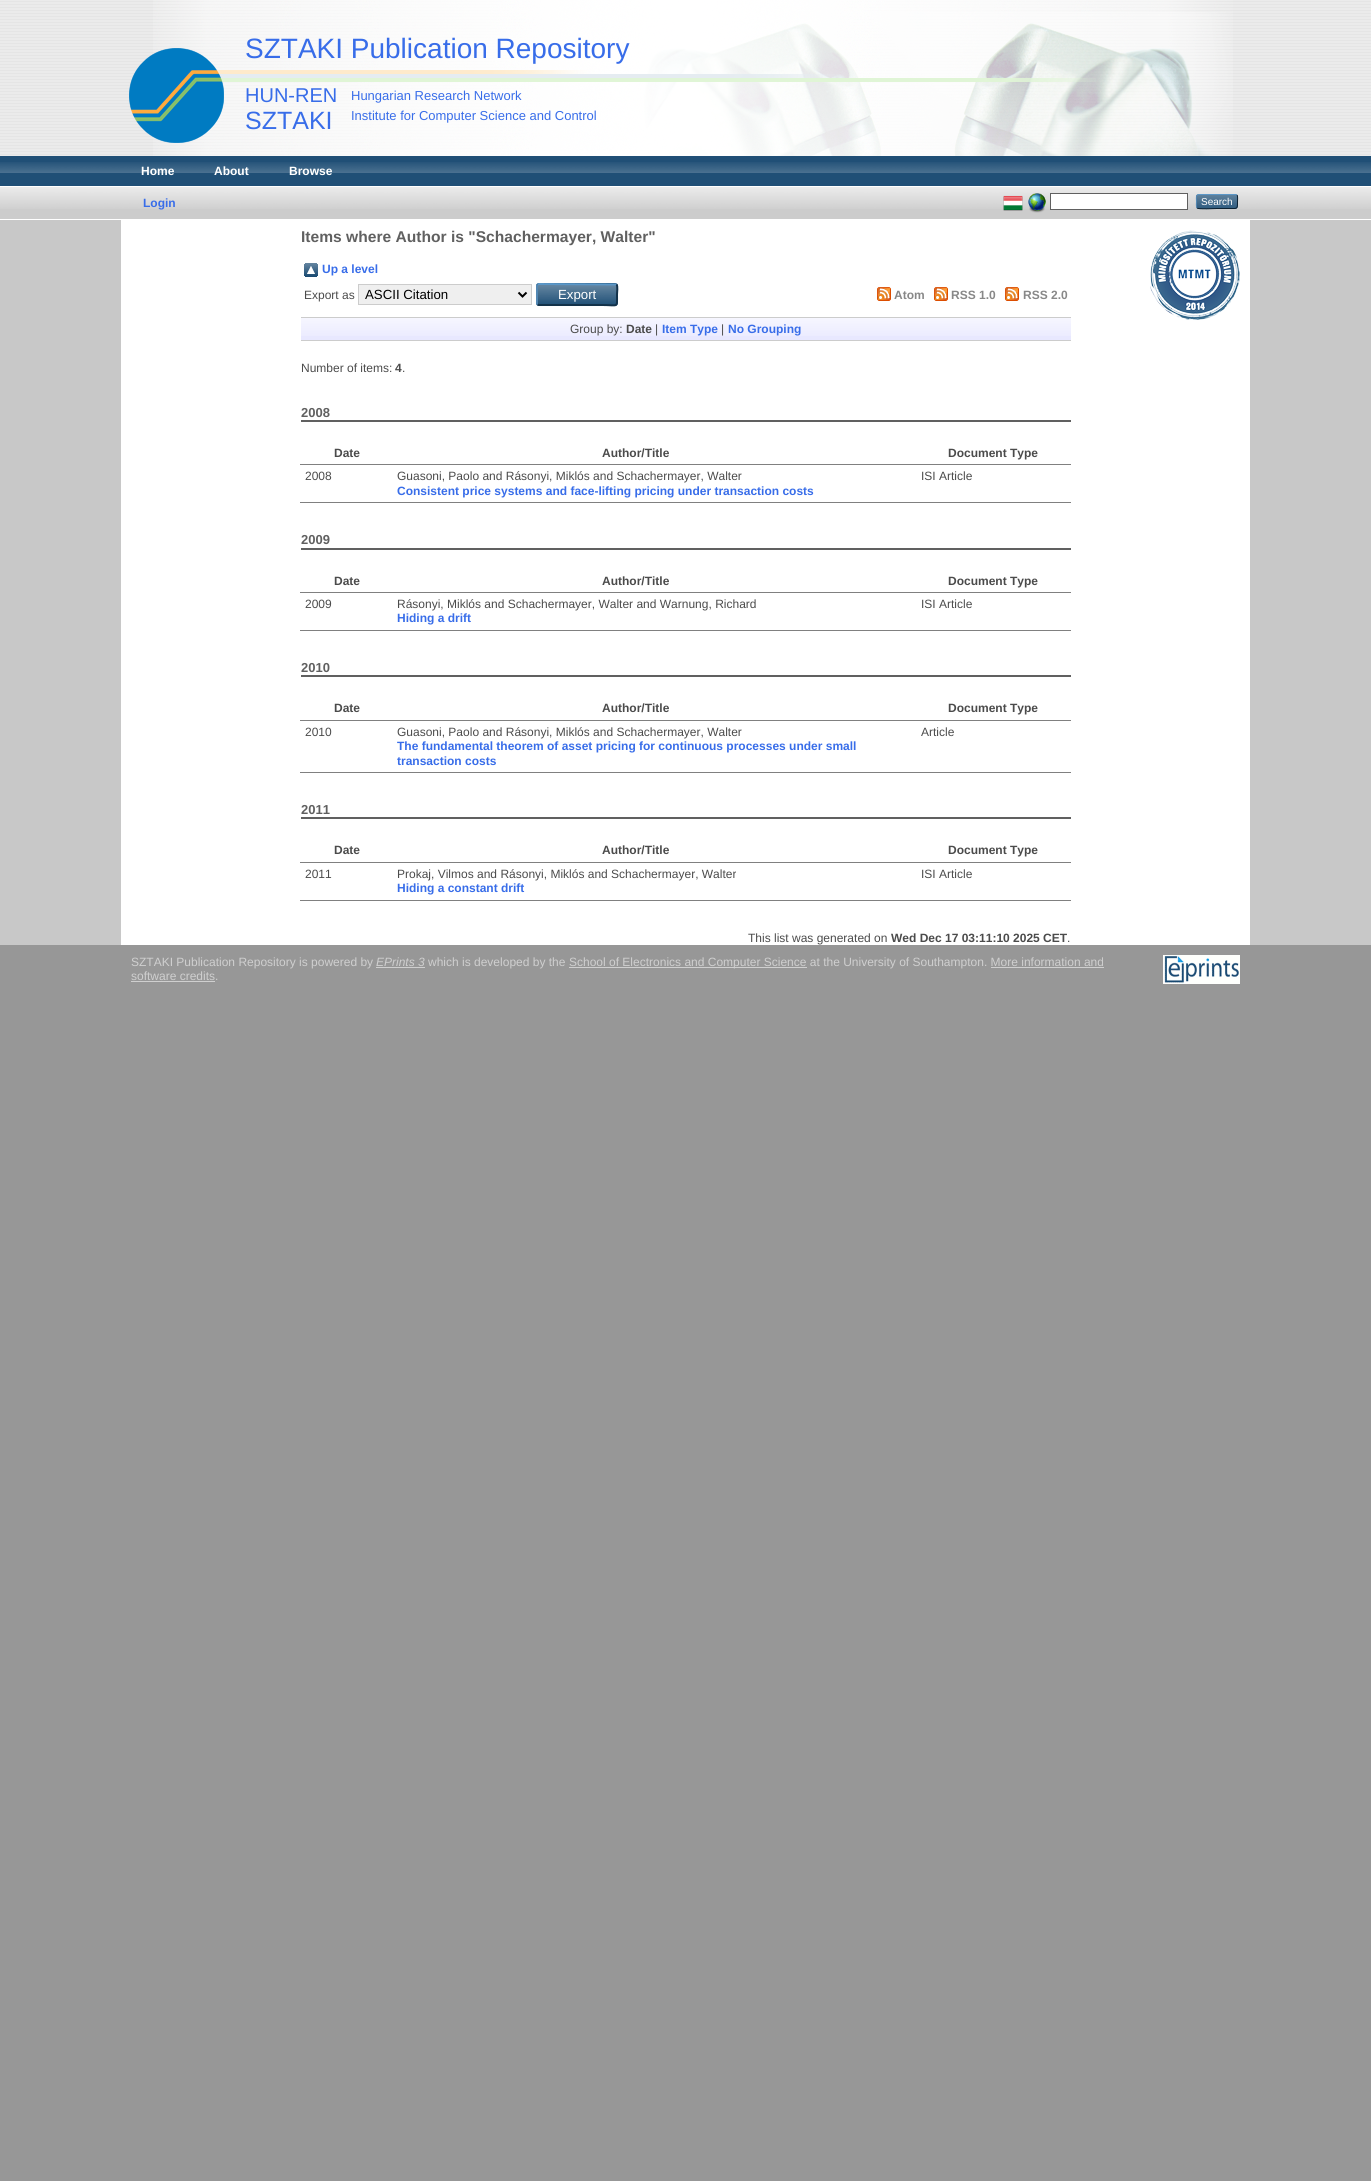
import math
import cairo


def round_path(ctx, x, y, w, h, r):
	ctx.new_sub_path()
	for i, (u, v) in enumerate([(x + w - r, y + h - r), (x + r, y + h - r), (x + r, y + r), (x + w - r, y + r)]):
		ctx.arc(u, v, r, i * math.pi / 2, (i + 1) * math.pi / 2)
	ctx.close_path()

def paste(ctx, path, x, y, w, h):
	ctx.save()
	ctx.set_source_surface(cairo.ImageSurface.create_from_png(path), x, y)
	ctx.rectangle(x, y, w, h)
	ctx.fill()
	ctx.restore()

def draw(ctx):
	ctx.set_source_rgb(0.592, 0.592, 0.592)
	ctx.paint()
	paste(ctx, 'media/1.png', 0, 0, 1371, 156)
	paste(ctx, 'media/2.png', 153, 0, 1080, 156)
	paste(ctx, 'media/4.png', 216, 70, 880, 12)
	paste(ctx, 'media/3.png', 129, 48, 95, 95)
	ctx.select_font_face('Liberation Sans')
	ctx.set_font_size(28)
	ctx.set_source_rgb(0.22, 0.427, 0.914)
	ctx.move_to(245, 58)
	ctx.show_text('SZTAKI Publication Repository')
	ctx.set_font_size(20)
	ctx.move_to(245, 102)
	ctx.show_text('HUN-REN')
	ctx.set_font_size(13)
	ctx.move_to(351, 100)
	ctx.show_text('Hungarian Research Network')
	ctx.set_font_size(25)
	ctx.move_to(245, 129)
	ctx.show_text('SZTAKI')
	ctx.set_font_size(13)
	ctx.move_to(351, 120)
	ctx.show_text('Institute for Computer Science and Control')
	ctx.set_source_rgb(0.125, 0.31, 0.463)
	ctx.rectangle(0, 156, 1371, 30)
	ctx.fill()
	paste(ctx, 'media/5.png', 0, 162, 1371, 11)
	ctx.set_source_rgb(1, 1, 1)
	ctx.rectangle(0, 186, 1371, 1)
	ctx.fill()
	ctx.set_source_rgb(0.125, 0.31, 0.463)
	ctx.rectangle(121, 162, 1129, 11)
	ctx.fill()
	paste(ctx, 'media/6.png', 121, 162, 1129, 11)
	ctx.select_font_face('Liberation Sans', cairo.FONT_SLANT_NORMAL, cairo.FONT_WEIGHT_BOLD)
	ctx.set_font_size(12)
	ctx.set_source_rgb(1, 1, 1)
	for x, y, s in [
		(141, 175, 'Home'),
		(214, 175, 'About'),
		(289, 175, 'Browse'),
	]:
		ctx.move_to(x, y)
		ctx.show_text(s)
	ctx.set_source_rgb(0.8, 0.8, 0.8)
	ctx.rectangle(0, 187, 1371, 32)
	ctx.fill()
	paste(ctx, 'media/7.png', 0, 187, 1371, 22)
	ctx.set_source_rgb(1, 1, 1)
	ctx.rectangle(0, 219, 1371, 1)
	ctx.fill()
	ctx.set_source_rgb(0.8, 0.8, 0.8)
	ctx.rectangle(121, 187, 1129, 22)
	ctx.fill()
	paste(ctx, 'media/8.png', 121, 187, 1129, 22)
	ctx.set_source_rgb(0.22, 0.427, 0.914)
	ctx.move_to(143, 207)
	ctx.show_text('Login')
	paste(ctx, 'media/9.png', 1003, 195, 20, 16)
	paste(ctx, 'media/10.png', 1028, 193, 18, 20)
	ctx.set_source_rgb(1, 1, 1)
	ctx.rectangle(1050.5, 193.5, 137, 16)
	ctx.fill_preserve()
	ctx.set_source_rgb(0.376, 0.376, 0.376)
	ctx.set_line_width(1)
	ctx.stroke()
	ctx.set_source_rgb(0.122, 0.31, 0.463)
	round_path(ctx, 1196, 194, 42, 15, 3)
	ctx.fill()
	paste(ctx, 'media/11.png', 1196, 194, 42, 15)
	ctx.new_path()
	ctx.move_to(1197, 195)
	ctx.line_to(1199, 194.5)
	ctx.line_to(1235, 194.5)
	ctx.line_to(1237, 195)
	ctx.set_source_rgb(0.357, 0.592, 0.78)
	ctx.stroke()
	ctx.new_path()
	ctx.move_to(1237, 195)
	ctx.curve_to(1238, 196.5, 1237.5, 199.5, 1237.5, 201.5)
	ctx.curve_to(1237.5, 209.5, 1237.5, 208.5, 1229, 208.5)
	ctx.line_to(1217, 208.5)
	ctx.curve_to(1214, 208.5, 1199, 209.5, 1197, 208)
	ctx.set_source_rgb(0.051, 0.129, 0.192)
	ctx.stroke()
	ctx.new_path()
	ctx.move_to(1197, 208)
	ctx.curve_to(1196, 206.5, 1196.5, 203.5, 1196.5, 201.5)
	ctx.curve_to(1196.5, 199.5, 1196, 196.5, 1197, 195)
	ctx.set_source_rgb(0.322, 0.529, 0.702)
	ctx.stroke()
	ctx.select_font_face('Liberation Sans')
	ctx.set_font_size(10)
	ctx.set_source_rgb(1, 1, 1)
	ctx.move_to(1201, 205)
	ctx.show_text('Search')
	ctx.set_source_rgb(0.784, 0.784, 0.784)
	ctx.rectangle(0, 220, 1371, 725)
	ctx.fill()
	ctx.set_source_rgb(1, 1, 1)
	ctx.rectangle(121, 220, 1129, 725)
	ctx.fill()
	ctx.select_font_face('Liberation Sans', cairo.FONT_SLANT_NORMAL, cairo.FONT_WEIGHT_BOLD)
	ctx.set_font_size(15.6)
	ctx.set_source_rgb(0.376, 0.376, 0.376)
	ctx.move_to(301, 242)
	ctx.show_text('Items where Author is "Schachermayer, Walter"')
	paste(ctx, 'media/12.png', 304, 263, 14, 14)
	ctx.set_font_size(12)
	ctx.set_source_rgb(0.22, 0.427, 0.914)
	ctx.move_to(322, 273)
	ctx.show_text('Up a level')
	ctx.select_font_face('Liberation Sans')
	ctx.set_source_rgb(0.294, 0.294, 0.294)
	ctx.move_to(304, 299)
	ctx.show_text('Export as')
	ctx.set_source_rgb(0.937, 0.937, 0.937)
	ctx.rectangle(358.5, 284.5, 173, 20)
	ctx.fill_preserve()
	ctx.set_source_rgb(0.8, 0.8, 0.8)
	ctx.stroke()
	ctx.new_path()
	ctx.move_to(518.5, 292.5)
	ctx.line_to(522.5, 296.5)
	ctx.line_to(526.5, 292.5)
	ctx.set_source_rgb(0, 0, 0)
	ctx.set_line_width(2)
	ctx.stroke()
	ctx.set_font_size(13.25)
	ctx.move_to(365, 299)
	ctx.show_text('ASCII Citation')
	ctx.set_source_rgb(0.122, 0.31, 0.463)
	round_path(ctx, 536, 283, 82, 23, 3)
	ctx.fill()
	paste(ctx, 'media/13.png', 536, 285, 82, 19)
	ctx.new_path()
	ctx.move_to(537.5, 284.5)
	ctx.line_to(539, 284)
	ctx.line_to(616.5, 284.5)
	ctx.set_source_rgb(0.357, 0.592, 0.78)
	ctx.stroke()
	ctx.new_path()
	ctx.move_to(616.5, 284.5)
	ctx.curve_to(618, 286, 617, 292.5, 617, 294.5)
	ctx.curve_to(617, 308.5, 618.5, 305, 602.5, 305)
	ctx.line_to(539, 305)
	ctx.line_to(537.5, 304.5)
	ctx.set_source_rgb(0.075, 0.196, 0.29)
	ctx.stroke()
	ctx.new_path()
	ctx.move_to(537.5, 304.5)
	ctx.curve_to(537, 304, 537, 303.5, 537, 303)
	ctx.line_to(537, 286)
	ctx.curve_to(537, 285.5, 537, 285, 537.5, 284.5)
	ctx.set_source_rgb(0.322, 0.529, 0.702)
	ctx.stroke()
	ctx.set_source_rgb(1, 1, 1)
	ctx.move_to(558, 299)
	ctx.show_text('Export')
	paste(ctx, 'media/14.png', 877, 287, 14, 14)
	ctx.select_font_face('Liberation Sans', cairo.FONT_SLANT_NORMAL, cairo.FONT_WEIGHT_BOLD)
	ctx.set_font_size(12)
	ctx.set_source_rgb(0.533, 0.533, 0.533)
	ctx.move_to(894, 299)
	ctx.show_text('Atom')
	paste(ctx, 'media/14.png', 934, 287, 14, 14)
	ctx.move_to(951, 299)
	ctx.show_text('RSS 1.0')
	paste(ctx, 'media/14.png', 1005, 287, 14, 14)
	ctx.move_to(1023, 299)
	ctx.show_text('RSS 2.0')
	ctx.set_source_rgb(0.91, 0.91, 1)
	ctx.rectangle(301, 318, 770, 22)
	ctx.fill()
	paste(ctx, 'media/15.png', 301, 318, 770, 18)
	ctx.set_source_rgb(0.8, 0.8, 0.8)
	ctx.rectangle(301, 317, 770, 1)
	ctx.fill()
	ctx.rectangle(301, 340, 770, 1)
	ctx.fill()
	ctx.select_font_face('Liberation Sans')
	ctx.set_source_rgb(0.294, 0.294, 0.294)
	ctx.move_to(570, 333)
	ctx.show_text('Group by:')
	ctx.select_font_face('Liberation Sans', cairo.FONT_SLANT_NORMAL, cairo.FONT_WEIGHT_BOLD)
	ctx.move_to(626, 333)
	ctx.show_text('Date')
	ctx.select_font_face('Liberation Sans')
	ctx.move_to(655, 333)
	ctx.show_text('|')
	ctx.select_font_face('Liberation Sans', cairo.FONT_SLANT_NORMAL, cairo.FONT_WEIGHT_BOLD)
	ctx.set_source_rgb(0.22, 0.427, 0.914)
	ctx.move_to(662, 333)
	ctx.show_text('Item Type')
	ctx.select_font_face('Liberation Sans')
	ctx.set_source_rgb(0.294, 0.294, 0.294)
	ctx.move_to(721, 333)
	ctx.show_text('|')
	ctx.select_font_face('Liberation Sans', cairo.FONT_SLANT_NORMAL, cairo.FONT_WEIGHT_BOLD)
	ctx.set_source_rgb(0.22, 0.427, 0.914)
	ctx.move_to(728, 333)
	ctx.show_text('No Grouping')
	ctx.select_font_face('Liberation Sans')
	ctx.set_source_rgb(0.294, 0.294, 0.294)
	ctx.move_to(301, 372)
	ctx.show_text('Number of items:')
	ctx.select_font_face('Liberation Sans', cairo.FONT_SLANT_NORMAL, cairo.FONT_WEIGHT_BOLD)
	ctx.move_to(395, 372)
	ctx.show_text('4')
	ctx.select_font_face('Liberation Sans')
	ctx.move_to(402, 372)
	ctx.show_text('.')
	ctx.set_source_rgb(0.376, 0.376, 0.376)
	ctx.rectangle(301, 420, 770, 2)
	ctx.fill()
	ctx.select_font_face('Liberation Sans', cairo.FONT_SLANT_NORMAL, cairo.FONT_WEIGHT_BOLD)
	ctx.set_font_size(13)
	ctx.move_to(301, 417)
	ctx.show_text('2008')
	ctx.set_font_size(12)
	ctx.set_source_rgb(0.294, 0.294, 0.294)
	ctx.move_to(334, 457)
	ctx.show_text('Date')
	ctx.move_to(602, 457)
	ctx.show_text('Author/Title')
	ctx.set_source_rgb(0.502, 0.502, 0.502)
	ctx.rectangle(300, 464, 771, 1)
	ctx.fill()
	ctx.set_source_rgb(0.294, 0.294, 0.294)
	ctx.move_to(948, 457)
	ctx.show_text('Document Type')
	ctx.select_font_face('Liberation Sans')
	ctx.move_to(305, 480)
	ctx.show_text('2008')
	ctx.move_to(397, 480)
	ctx.show_text('Guasoni, Paolo and Rásonyi, Miklós and Schachermayer, Walter')
	ctx.select_font_face('Liberation Sans', cairo.FONT_SLANT_NORMAL, cairo.FONT_WEIGHT_BOLD)
	ctx.set_source_rgb(0.22, 0.427, 0.914)
	ctx.move_to(397, 495)
	ctx.show_text('Consistent price systems and face-lifting pricing under transaction costs')
	ctx.set_source_rgb(0.502, 0.502, 0.502)
	ctx.rectangle(300, 502, 771, 1)
	ctx.fill()
	ctx.select_font_face('Liberation Sans')
	ctx.set_source_rgb(0.294, 0.294, 0.294)
	ctx.move_to(921, 480)
	ctx.show_text('ISI Article')
	ctx.set_source_rgb(0.376, 0.376, 0.376)
	ctx.rectangle(301, 548, 770, 2)
	ctx.fill()
	ctx.select_font_face('Liberation Sans', cairo.FONT_SLANT_NORMAL, cairo.FONT_WEIGHT_BOLD)
	ctx.set_font_size(13)
	ctx.move_to(301, 544)
	ctx.show_text('2009')
	ctx.set_font_size(12)
	ctx.set_source_rgb(0.294, 0.294, 0.294)
	ctx.move_to(334, 585)
	ctx.show_text('Date')
	ctx.move_to(602, 585)
	ctx.show_text('Author/Title')
	ctx.set_source_rgb(0.502, 0.502, 0.502)
	ctx.rectangle(300, 592, 771, 1)
	ctx.fill()
	ctx.set_source_rgb(0.294, 0.294, 0.294)
	ctx.move_to(948, 585)
	ctx.show_text('Document Type')
	ctx.select_font_face('Liberation Sans')
	ctx.move_to(305, 608)
	ctx.show_text('2009')
	ctx.move_to(397, 608)
	ctx.show_text('Rásonyi, Miklós and Schachermayer, Walter and Warnung, Richard')
	ctx.select_font_face('Liberation Sans', cairo.FONT_SLANT_NORMAL, cairo.FONT_WEIGHT_BOLD)
	ctx.set_source_rgb(0.22, 0.427, 0.914)
	ctx.move_to(397, 622)
	ctx.show_text('Hiding a drift')
	ctx.set_source_rgb(0.502, 0.502, 0.502)
	ctx.rectangle(300, 630, 771, 1)
	ctx.fill()
	ctx.select_font_face('Liberation Sans')
	ctx.set_source_rgb(0.294, 0.294, 0.294)
	ctx.move_to(921, 608)
	ctx.show_text('ISI Article')
	ctx.set_source_rgb(0.376, 0.376, 0.376)
	ctx.rectangle(301, 675, 770, 2)
	ctx.fill()
	ctx.select_font_face('Liberation Sans', cairo.FONT_SLANT_NORMAL, cairo.FONT_WEIGHT_BOLD)
	ctx.set_font_size(13)
	ctx.move_to(301, 672)
	ctx.show_text('2010')
	ctx.set_font_size(12)
	ctx.set_source_rgb(0.294, 0.294, 0.294)
	ctx.move_to(334, 712)
	ctx.show_text('Date')
	ctx.move_to(602, 712)
	ctx.show_text('Author/Title')
	ctx.set_source_rgb(0.502, 0.502, 0.502)
	ctx.rectangle(300, 720, 771, 1)
	ctx.fill()
	ctx.set_source_rgb(0.294, 0.294, 0.294)
	ctx.move_to(948, 712)
	ctx.show_text('Document Type')
	ctx.select_font_face('Liberation Sans')
	ctx.move_to(305, 736)
	ctx.show_text('2010')
	ctx.move_to(397, 736)
	ctx.show_text('Guasoni, Paolo and Rásonyi, Miklós and Schachermayer, Walter')
	ctx.select_font_face('Liberation Sans', cairo.FONT_SLANT_NORMAL, cairo.FONT_WEIGHT_BOLD)
	ctx.set_source_rgb(0.22, 0.427, 0.914)
	ctx.move_to(397, 750)
	ctx.show_text('The fundamental theorem of asset pricing for continuous processes under small')
	ctx.move_to(397, 765)
	ctx.show_text('transaction costs')
	ctx.set_source_rgb(0.502, 0.502, 0.502)
	ctx.rectangle(300, 772, 771, 1)
	ctx.fill()
	ctx.select_font_face('Liberation Sans')
	ctx.set_source_rgb(0.294, 0.294, 0.294)
	ctx.move_to(921, 736)
	ctx.show_text('Article')
	ctx.set_source_rgb(0.376, 0.376, 0.376)
	ctx.rectangle(301, 817, 770, 2)
	ctx.fill()
	ctx.select_font_face('Liberation Sans', cairo.FONT_SLANT_NORMAL, cairo.FONT_WEIGHT_BOLD)
	ctx.set_font_size(13)
	ctx.move_to(301, 814)
	ctx.show_text('2011')
	ctx.set_font_size(12)
	ctx.set_source_rgb(0.294, 0.294, 0.294)
	ctx.move_to(334, 854)
	ctx.show_text('Date')
	ctx.move_to(602, 854)
	ctx.show_text('Author/Title')
	ctx.set_source_rgb(0.502, 0.502, 0.502)
	ctx.rectangle(300, 862, 771, 1)
	ctx.fill()
	ctx.set_source_rgb(0.294, 0.294, 0.294)
	ctx.move_to(948, 854)
	ctx.show_text('Document Type')
	ctx.select_font_face('Liberation Sans')
	ctx.move_to(305, 878)
	ctx.show_text('2011')
	ctx.move_to(397, 878)
	ctx.show_text('Prokaj, Vilmos and Rásonyi, Miklós and Schachermayer, Walter')
	ctx.select_font_face('Liberation Sans', cairo.FONT_SLANT_NORMAL, cairo.FONT_WEIGHT_BOLD)
	ctx.set_source_rgb(0.22, 0.427, 0.914)
	ctx.move_to(397, 892)
	ctx.show_text('Hiding a constant drift')
	ctx.set_source_rgb(0.502, 0.502, 0.502)
	ctx.rectangle(300, 900, 771, 1)
	ctx.fill()
	ctx.select_font_face('Liberation Sans')
	ctx.set_source_rgb(0.294, 0.294, 0.294)
	ctx.move_to(921, 878)
	ctx.show_text('ISI Article')
	ctx.move_to(748, 942)
	ctx.show_text('This list was generated on')
	ctx.select_font_face('Liberation Sans', cairo.FONT_SLANT_NORMAL, cairo.FONT_WEIGHT_BOLD)
	ctx.move_to(891, 942)
	ctx.show_text('Wed Dec 17 03:11:10 2025 CET')
	ctx.select_font_face('Liberation Sans')
	ctx.move_to(1067, 942)
	ctx.show_text('.')
	paste(ctx, 'media/16.png', 1150, 230, 90, 90)
	ctx.set_source_rgb(0.812, 0.812, 0.812)
	ctx.move_to(131, 966)
	ctx.show_text('SZTAKI Publication Repository is powered by')
	ctx.select_font_face('Liberation Sans', cairo.FONT_SLANT_ITALIC)
	ctx.move_to(376, 966)
	ctx.show_text('EPrints 3')
	ctx.rectangle(376, 967, 49, 1)
	ctx.fill()
	ctx.select_font_face('Liberation Sans')
	ctx.move_to(428, 966)
	ctx.show_text('which is developed by the')
	ctx.rectangle(569, 967, 238, 1)
	ctx.fill()
	ctx.move_to(569, 966)
	ctx.show_text('School of Electronics and Computer Science at the University of Southampton. More information and')
	ctx.move_to(131, 980)
	ctx.show_text('software credits.')
	ctx.rectangle(991, 967, 113, 1)
	ctx.fill()
	ctx.rectangle(131, 981, 84, 1)
	ctx.fill()
	paste(ctx, 'media/17.png', 1163, 955, 77, 29)


surface = cairo.ImageSurface(cairo.FORMAT_RGB24, 1371, 2181)
ctx = cairo.Context(surface)
options = cairo.FontOptions()
options.set_hint_metrics(cairo.HINT_METRICS_OFF)
options.set_hint_style(cairo.HINT_STYLE_NONE)
ctx.set_font_options(options)
ctx.set_miter_limit(4)
draw(ctx)
surface.write_to_png('image.png')
